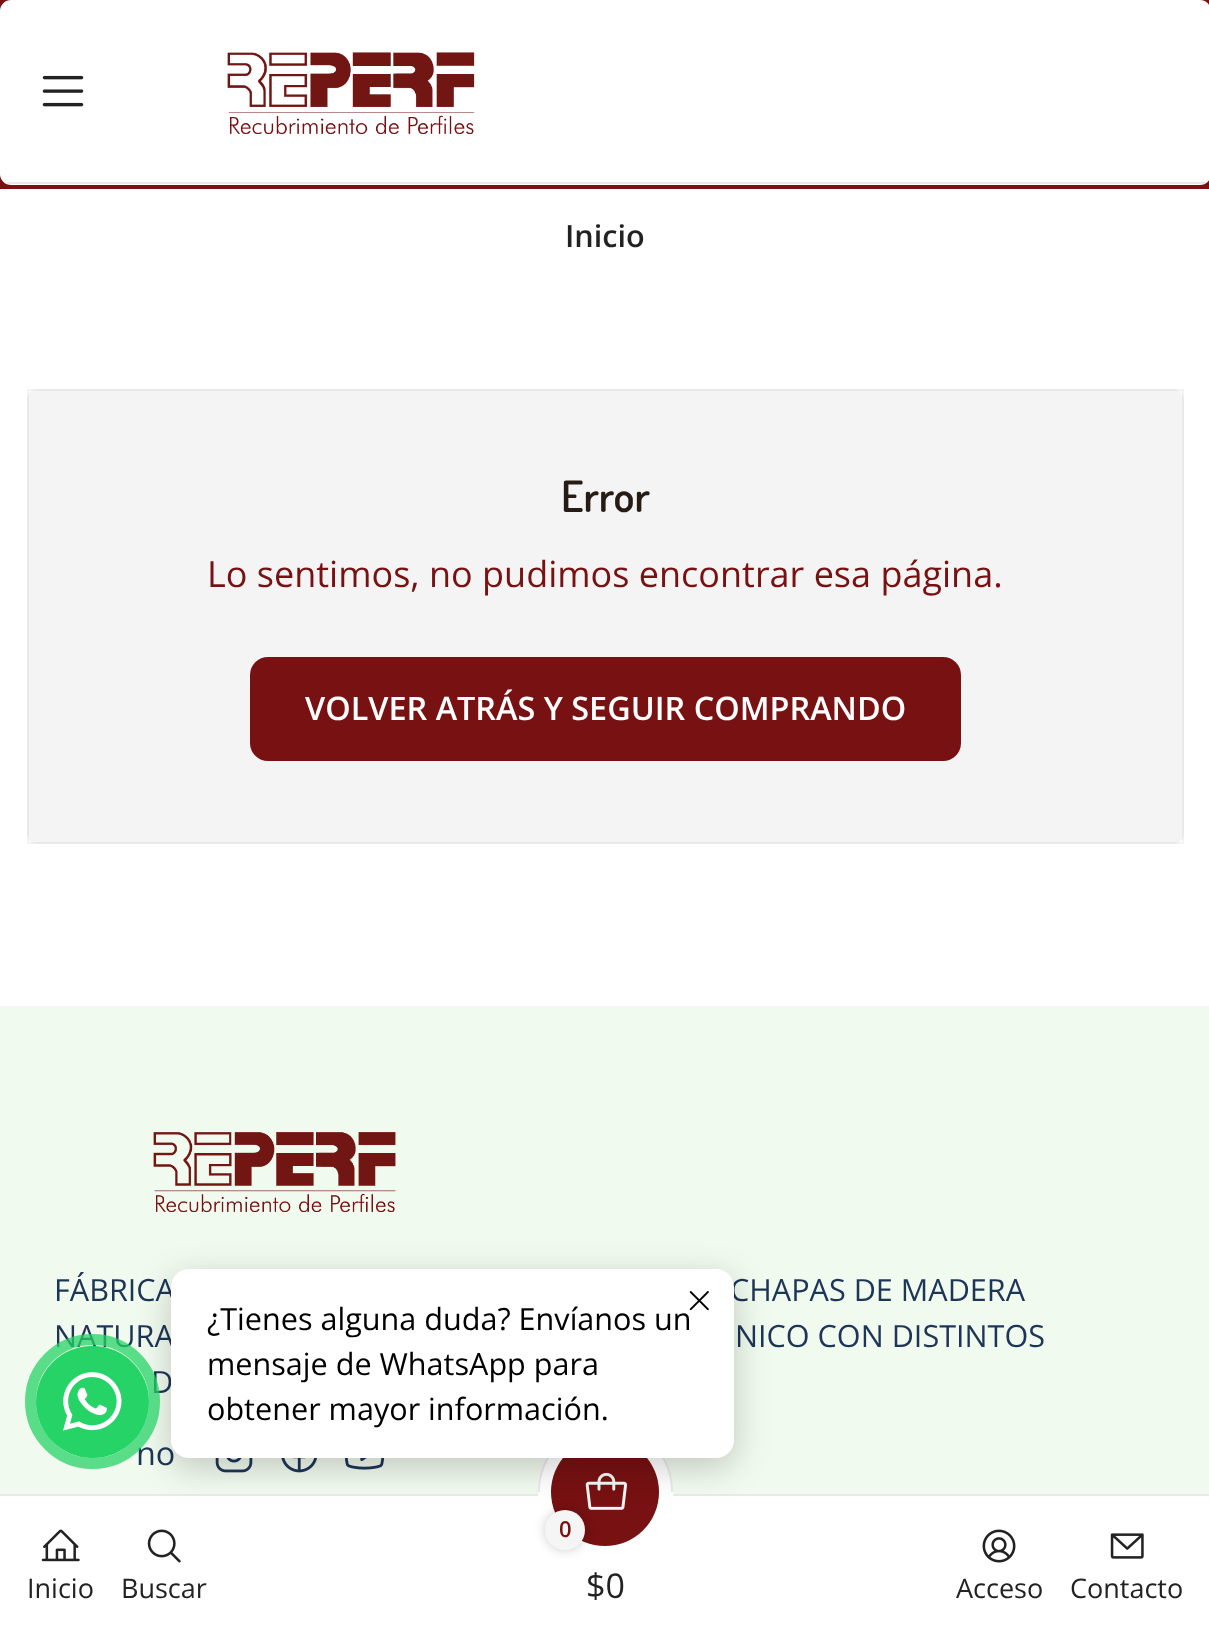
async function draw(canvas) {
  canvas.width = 1209;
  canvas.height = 1628;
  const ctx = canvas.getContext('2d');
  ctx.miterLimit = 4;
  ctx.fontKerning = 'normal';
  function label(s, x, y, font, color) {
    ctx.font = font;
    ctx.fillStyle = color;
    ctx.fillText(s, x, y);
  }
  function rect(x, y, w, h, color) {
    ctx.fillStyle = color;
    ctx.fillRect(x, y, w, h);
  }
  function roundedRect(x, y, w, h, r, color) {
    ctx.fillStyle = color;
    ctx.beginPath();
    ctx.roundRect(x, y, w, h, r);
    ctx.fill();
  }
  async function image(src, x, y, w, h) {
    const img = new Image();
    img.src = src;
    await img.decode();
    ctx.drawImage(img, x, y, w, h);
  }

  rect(0, 0, 1209, 1628, '#fff');
  label('Inicio', 565, 247, '600 30.6px Open Sans', '#222');
  roundedRect(27, 389, 1157, 455, 11, '#f5f4f4');
  ctx.strokeStyle = '#261c150d';
  ctx.lineWidth = 2;
  ctx.strokeRect(28, 390, 1155, 453);
  label('Error', 561, 512, '600 43px Dosis', '#261c15');
  label('Lo sentimos, no pudimos encontrar esa página.', 207, 587, '36px Open Sans', '#771112');
  roundedRect(250, 657, 711, 104, 18, '#771112');
  label('VOLVER ATRÁS Y SEGUIR COMPRANDO', 305, 720, '600 32.4px Open Sans', '#fff');
  rect(0, 1006, 1209, 488, '#f1faee');
  await image('assets/img1.png', 153, 1132, 243, 80);
  label('FÁBRICA', 54, 1301, '30.6px Open Sans', '#1d3557');
  label('CHAPAS DE MADERA', 730, 1301, '30.6px Open Sans', '#1d3557');
  label('NATURA', 54, 1347, '30.6px Open Sans', '#1d3557');
  label('NICO CON DISTINTOS', 735, 1347, '30.6px Open Sans', '#1d3557');
  label('D', 151, 1393, '30.6px Open Sans', '#1d3557');
  label('no', 136, 1465, '32.4px Open Sans', '#1d3557');
  await image('assets/img2.png', 215, 1458, 38, 15);
  await image('assets/img3.png', 281, 1458, 36, 15);
  await image('assets/img4.png', 344, 1458, 41, 12);
  rect(0, 0, 1209, 189, '#771112');
  roundedRect(0, 0, 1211, 185, 11, '#fff');
  rect(7, 182, 1199, 2, '#2222221a');
  await image('assets/img5.png', 42, 75, 42, 32);
  await image('assets/img6.png', 227, 52, 248, 82);
  rect(0, 1494, 1209, 2, '#e9e9e9');
  await image('assets/img7.png', 41, 1529, 39, 33);
  label('Inicio', 27, 1598, '27px Open Sans', '#222');
  await image('assets/img8.png', 147, 1529, 34, 34);
  label('Buscar', 121, 1598, '27px Open Sans', '#222');
  ctx.beginPath();
  ctx.arc(605.5, 1491.5, 60.5, 0, 2 * Math.PI);
  ctx.strokeStyle = '#fff';
  ctx.lineWidth = 14;
  ctx.stroke();
  ctx.fillStyle = '#fff';
  ctx.beginPath();
  ctx.arc(605.5, 1491.5, 66.5, 0, 2 * Math.PI);
  ctx.fill();
  ctx.strokeStyle = '#e9e9e9';
  ctx.lineWidth = 2;
  ctx.stroke();
  rect(538, 1492, 135, 67, '#fff');
  ctx.fillStyle = '#771112';
  ctx.beginPath();
  ctx.arc(605, 1492, 54, 0, 2 * Math.PI);
  ctx.fill();
  await image('assets/img9.png', 585, 1472, 42, 38);
  ctx.fillStyle = '#00000033';
  ctx.filter = 'blur(5.5px)';
  ctx.beginPath();
  ctx.roundRect(545, 1510, 40, 40, 20);
  ctx.fill();
  ctx.filter = 'none';
  ctx.fillStyle = '#f5f5f5';
  ctx.beginPath();
  ctx.arc(565, 1530, 20, 0, 2 * Math.PI);
  ctx.fill();
  label('0', 559, 1537, '600 22px Open Sans', '#771112');
  label('$0', 586, 1598, '34px Open Sans', '#222');
  await image('assets/img10.png', 982, 1529, 34, 34);
  label('Acceso', 956, 1598, '27px Open Sans', '#222');
  await image('assets/img11.png', 1110, 1533, 34, 26);
  label('Contacto', 1070, 1598, '27px Open Sans', '#222');
  ctx.fillStyle = '#00000033';
  ctx.filter = 'blur(17px)';
  ctx.beginPath();
  ctx.roundRect(171, 1278, 563, 189, 18);
  ctx.fill();
  ctx.filter = 'none';
  roundedRect(36, 1346, 113, 112, 56, '#25d366');
  await image('assets/img12.png', 63, 1372, 59, 59);
  ctx.beginPath();
  ctx.arc(92.5, 1401.5, 62, 0, 2 * Math.PI);
  ctx.strokeStyle = '#25d366bf';
  ctx.lineWidth = 11;
  ctx.stroke();
  roundedRect(171, 1269, 563, 189, 18, '#fff');
  label('¿Tienes alguna duda? Envíanos un', 207, 1330, '30.6px Open Sans', '#000');
  await image('assets/img13.png', 689, 1291, 20, 20);
  label('mensaje de WhatsApp para', 207, 1375, '30.6px Open Sans', '#000');
  label('obtener mayor información.', 207, 1420, '30.6px Open Sans', '#000');
}

draw(document.querySelector('canvas'));
